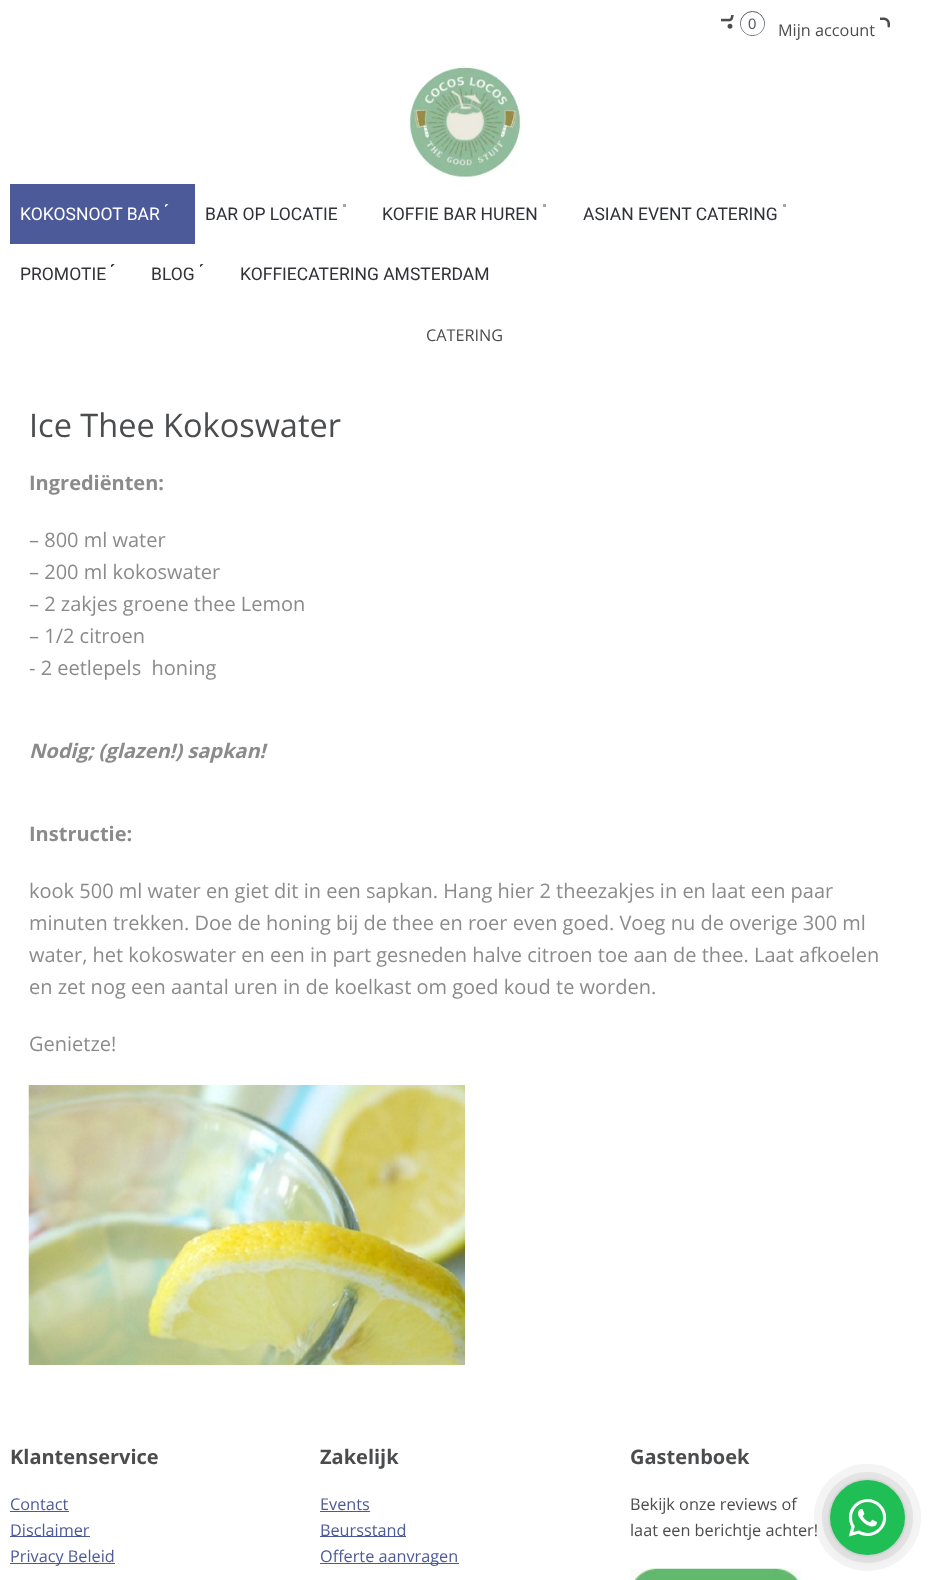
async function draw(canvas) {
  canvas.width = 930;
  canvas.height = 1580;
  const ctx = canvas.getContext('2d');
  ctx.miterLimit = 4;
  ctx.fontKerning = 'normal';
  function label(s, x, y, font, color) {
    ctx.font = font;
    ctx.fillStyle = color;
    ctx.fillText(s, x, y);
  }
  function rect(x, y, w, h, color) {
    ctx.fillStyle = color;
    ctx.fillRect(x, y, w, h);
  }
  function roundedRect(x, y, w, h, r, color) {
    ctx.fillStyle = color;
    ctx.beginPath();
    ctx.roundRect(x, y, w, h, r);
    ctx.fill();
  }
  async function image(src, x, y, w, h) {
    const img = new Image();
    img.src = src;
    await img.decode();
    ctx.drawImage(img, x, y, w, h);
  }

  rect(0, 0, 930, 1580, '#fff');
  await image('assets/img1.png', 721, 15, 13, 14);
  ctx.beginPath();
  ctx.arc(752.5, 23.5, 12, 0, 2 * Math.PI);
  ctx.strokeStyle = '#575b62';
  ctx.stroke();
  roundedRect(741, 13, 23, 22, 11, '#fff');
  label('0', 748, 29, '15px Liberation Sans', '#575b62');
  await image('assets/img2.png', 880, 17, 10, 11);
  label('Mijn account', 778, 36, '16.25px Open Sans', '#4a4c4e');
  await image('assets/img3.png', 409, 66, 116, 112);
  await image('assets/img4.png', 410, 67, 110, 110);
  rect(10, 184, 185, 60, '#4d5a99');
  await image('assets/img5.png', 165, 204, 4, 3);
  label('KOKOSNOOT BAR', 20, 220, '17.5px Roboto', '#fff');
  rect(343, 204, 3, 3, '#a6a7a9');
  label('BAR OP LOCATIE', 205, 220, '17.5px Roboto', '#303237');
  rect(543, 204, 3, 3, '#a6a7a9');
  label('KOFFIE BAR HUREN', 382, 220, '17.5px Roboto', '#303237');
  rect(783, 204, 3, 3, '#a6a7a9');
  label('ASIAN EVENT CATERING', 583, 220, '17.5px Roboto', '#303237');
  await image('assets/img6.png', 111, 264, 4, 3);
  label('PROMOTIE', 20, 280, '17.5px Roboto', '#303237');
  await image('assets/img7.png', 200, 264, 4, 3);
  label('BLOG', 151, 280, '17.5px Roboto', '#303237');
  label('KOFFIECATERING AMSTERDAM', 240, 280, '17.5px Roboto', '#303237');
  label('CATERING', 426, 341, '16.25px Open Sans', '#4a4c4e');
  label('Ice Thee Kokoswater', 29, 437, '32.5px Open Sans', '#4a4c4e');
  label('Ingrediënten:', 29, 490, 'bold 20px Open Sans', '#8b8b8b');
  label('– 800 ml water', 29, 547, '20px Open Sans', '#8b8b8b');
  label('– 200 ml kokoswater', 29, 579, '20px Open Sans', '#8b8b8b');
  label('– 2 zakjes groene thee Lemon', 29, 611, '20px Open Sans', '#8b8b8b');
  label('– 1/2 citroen', 29, 643, '20px Open Sans', '#8b8b8b');
  label('- 2 eetlepels  honing', 29, 675, '20px Open Sans', '#8b8b8b');
  label('Nodig; (glazen!) sapkan!', 29, 758, 'italic bold 20px Open Sans', '#8b8b8b');
  label('Instructie:', 29, 841, 'bold 20px Open Sans', '#8b8b8b');
  label('kook 500 ml water en giet dit in een sapkan. Hang hier 2 theezakjes in en laat een paar', 29, 898, '20px Open Sans', '#8b8b8b');
  label('minuten trekken. Doe de honing bij de thee en roer even goed. Voeg nu de overige 300 ml', 29, 930, '20px Open Sans', '#8b8b8b');
  label('water, het kokoswater en een in part gesneden halve citroen toe aan de thee. Laat afkoelen', 29, 962, '20px Open Sans', '#8b8b8b');
  label('en zet nog een aantal uren in de koelkast om goed koud te worden.', 29, 994, '20px Open Sans', '#8b8b8b');
  label('Genietze!', 29, 1051, '20px Open Sans', '#8b8b8b');
  await image('assets/img8.png', 28, 1085, 437, 280);
  label('Klantenservice', 10, 1464, 'bold 20px Open Sans', '#4a4c4e');
  label('Contact', 10, 1510, '16.25px Open Sans', '#4d5a99');
  rect(10, 1511, 59, 1, '#4d5a99');
  rect(10, 1536, 80, 1, '#4d5a99');
  label('Disclaimer', 10, 1536, '16.25px Open Sans', '#4d5a99');
  rect(10, 1563, 105, 1, '#4d5a99');
  label('Privacy Beleid', 10, 1562, '16.25px Open Sans', '#4d5a99');
  label('Zakelijk', 320, 1464, 'bold 20px Open Sans', '#4a4c4e');
  label('Events', 320, 1510, '16.25px Open Sans', '#4d5a99');
  rect(320, 1511, 50, 1, '#4d5a99');
  rect(320, 1536, 86, 1, '#4d5a99');
  label('Beursstand', 320, 1536, '16.25px Open Sans', '#4d5a99');
  rect(320, 1563, 139, 1, '#4d5a99');
  label('Offerte aanvragen', 320, 1562, '16.25px Open Sans', '#4d5a99');
  label('Gastenboek', 630, 1464, 'bold 20px Open Sans', '#4a4c4e');
  label('Bekijk onze reviews of', 630, 1510, '16.25px Open Sans', '#4a4c4e');
  label('laat een berichtje achter!', 630, 1536, '16.25px Open Sans', '#4a4c4e');
  await image('assets/img9.png', 630, 1568, 172, 12);
  await image('assets/img10.png', 814, 1464, 107, 107);
}

draw(document.querySelector('canvas'));
